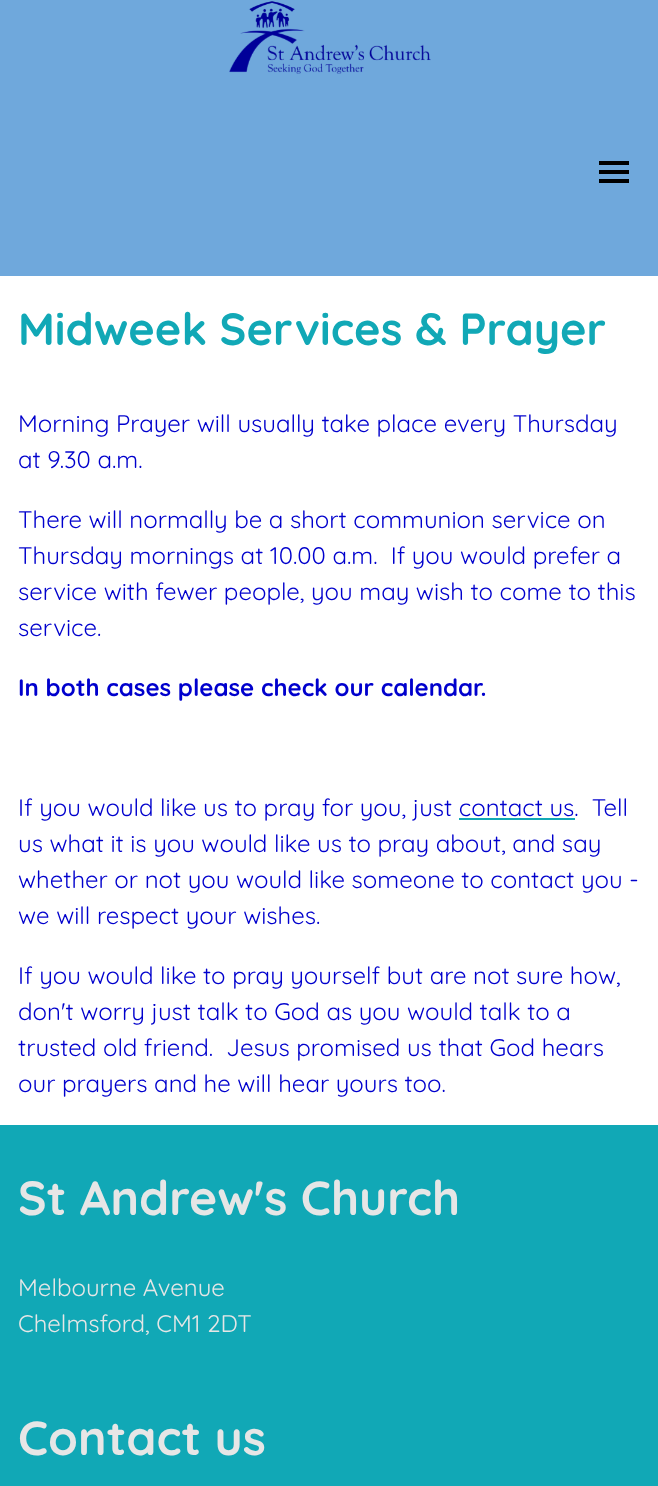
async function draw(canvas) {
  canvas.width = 658;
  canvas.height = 1486;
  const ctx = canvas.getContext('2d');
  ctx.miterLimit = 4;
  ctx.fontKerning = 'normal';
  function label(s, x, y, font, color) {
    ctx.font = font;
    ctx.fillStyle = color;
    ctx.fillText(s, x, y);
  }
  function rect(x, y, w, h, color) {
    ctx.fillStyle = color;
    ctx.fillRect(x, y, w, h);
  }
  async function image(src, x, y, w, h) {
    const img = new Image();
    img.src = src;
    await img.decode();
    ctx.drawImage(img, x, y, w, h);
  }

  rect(0, 0, 658, 1486, '#fff');
  rect(0, 0, 658, 276, '#6fa8dc');
  await image('assets/img1.png', 229, 1, 202, 73);
  rect(599, 161, 30, 4, '#000');
  rect(599, 170, 30, 4, '#000');
  rect(599, 179, 30, 4, '#000');
  label('Midweek Services & Prayer', 18, 345, 'bold 45px Quicksand', '#11a8b6');
  label('Morning Prayer will usually take place every Thursday', 18, 432, '24px Quicksand', '#0000cd');
  label('at 9.30 a.m.', 18, 468, '24px Quicksand', '#0000cd');
  label('There will normally be a short communion service on', 18, 528, '24px Quicksand', '#0000cd');
  label('Thursday mornings at 10.00 a.m.  If you would prefer a', 18, 564, '24px Quicksand', '#0000cd');
  label('service with fewer people, you may wish to come to this', 18, 600, '24px Quicksand', '#0000cd');
  label('service.', 18, 636, '24px Quicksand', '#0000cd');
  label('In both cases please check our calendar.', 18, 696, 'bold 24px Quicksand', '#0000cd');
  label('If you would like us to pray for you, just contact us.  Tell', 18, 816, '24px Quicksand', '#0000cd');
  rect(459, 818, 116, 2, '#11a8b6');
  label('us what it is you would like us to pray about, and say', 18, 852, '24px Quicksand', '#0000cd');
  label('whether or not you would like someone to contact you -', 18, 888, '24px Quicksand', '#0000cd');
  label('we will respect your wishes.', 18, 924, '24px Quicksand', '#0000cd');
  label('If you would like to pray yourself but are not sure how,', 18, 984, '24px Quicksand', '#0000cd');
  label('don\'t worry just talk to God as you would talk to a', 18, 1020, '24px Quicksand', '#0000cd');
  label('trusted old friend.  Jesus promised us that God hears', 18, 1056, '24px Quicksand', '#0000cd');
  label('our prayers and he will hear yours too.', 18, 1092, '24px Quicksand', '#0000cd');
  rect(0, 1125, 658, 361, '#11a8b6');
  label('St Andrew\'s Church', 18, 1215, 'bold 48px Quicksand', '#e6e6e6');
  label('Melbourne Avenue', 18, 1296, '24px Quicksand', '#e6e6e6');
  label('Chelmsford, CM1 2DT', 18, 1332, '24px Quicksand', '#e6e6e6');
  label('Contact us', 18, 1455, 'bold 48px Quicksand', '#e6e6e6');
}

draw(document.querySelector('canvas'));
